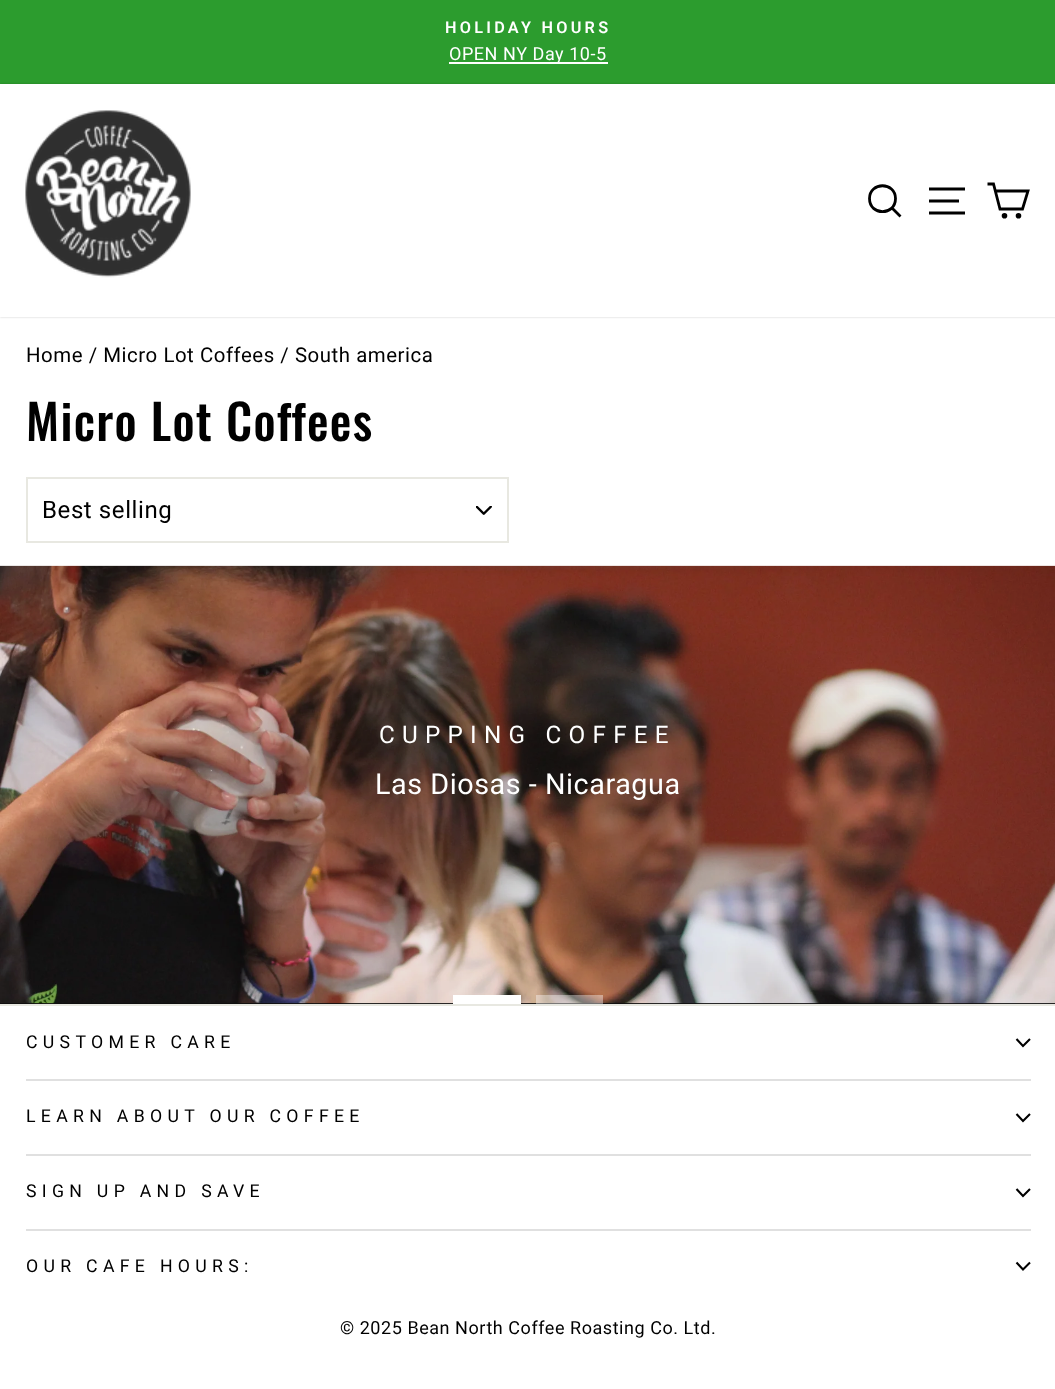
async function draw(canvas) {
  canvas.width = 1055;
  canvas.height = 1389;
  const ctx = canvas.getContext('2d');
  ctx.miterLimit = 4;
  ctx.fontKerning = 'normal';
  function label(s, x, y, font, color) {
    ctx.font = font;
    ctx.fillStyle = color;
    ctx.fillText(s, x, y);
  }
  function rect(x, y, w, h, color) {
    ctx.fillStyle = color;
    ctx.fillRect(x, y, w, h);
  }
  async function image(src, x, y, w, h) {
    const img = new Image();
    img.src = src;
    await img.decode();
    ctx.drawImage(img, x, y, w, h);
  }
  let path;

  rect(0, 0, 1055, 1389, '#fff');
  rect(0, 0, 1055, 84, '#2c9c2e');
  ctx.letterSpacing = '3.25px';
  label('HOLIDAY HOURS', 445, 33, '600 16.25px Roboto', '#fff');
  rect(449, 62, 159, 2, '#fff');
  ctx.letterSpacing = '0.55px';
  label('OPEN NY Day 10-5', 449, 60, '18px Roboto', '#fff');
  ctx.fillStyle = '#00000033';
  ctx.filter = 'blur(1px)';
  ctx.beginPath();
  ctx.rect(0, 84, 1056, 233);
  ctx.fill();
  ctx.filter = 'none';
  rect(0, 84, 1055, 233, '#fff');
  await image('assets/img1.png', 25, 110, 166, 168);
  path = new Path2D('M895.5 198.5C895.5 216 869.5 216 869.5 198.5C869.5 181.5 895.5 181.5 895.5 198.5ZM900.5 216.5L892 208');
  ctx.strokeStyle = '#000';
  ctx.lineWidth = 2.8;
  ctx.stroke(path);
  path = new Path2D('M929 189H965M929 201H959M929 213H965');
  ctx.stroke(path);
  path = new Path2D('M995.5 191H1028L1022.5 209H1000L993.5 184H987.5');
  ctx.stroke(path);
  ctx.beginPath();
  ctx.arc(1004.5, 215.8, 1.4, 0, 2 * Math.PI);
  ctx.stroke();
  ctx.beginPath();
  ctx.arc(1018.5, 215.8, 1.4, 0, 2 * Math.PI);
  ctx.stroke();
  label('Home / Micro Lot Coffees / South america', 26, 362, '20.4px Roboto', '#000');
  ctx.letterSpacing = '1.25px';
  label('Micro Lot Coffees', 26, 441, '500 48.5px Oswald', '#000');
  await image('assets/img2.png', 476, 506, 16, 9);
  ctx.strokeStyle = '#e8e8e1';
  ctx.lineWidth = 2;
  ctx.strokeRect(27, 478, 481, 64);
  ctx.letterSpacing = '0.6px';
  label('Best selling', 42, 518, '24px Roboto', '#000');
  rect(0, 1003, 1055, 1, '#0e0e0e');
  await image('assets/img3.png', 0, 565, 1055, 439);
  ctx.letterSpacing = '7.25px';
  label('CUPPING COFFEE', 379, 743, '24.25px Roboto', '#fff');
  ctx.letterSpacing = '0.55px';
  label('Las Diosas - Nicaragua', 375, 794, '28.75px Roboto', '#fff');
  rect(453, 995, 68, 9, '#fff');
  rect(536, 995, 67, 9, '#ffffff66');
  rect(0, 1004, 1055, 2, '#e8e8e1');
  ctx.letterSpacing = '5.3px';
  label('CUSTOMER CARE', 26, 1048, '17.7px Roboto', '#000');
  path = new Path2D('M1016.5 1039L1023 1046L1030 1039');
  ctx.strokeStyle = '#000';
  ctx.lineWidth = 2.1;
  ctx.stroke(path);
  rect(26, 1079, 1005, 2, '#e0e0e0');
  label('LEARN ABOUT OUR COFFEE', 26, 1122, '17.7px Roboto', '#000');
  path = new Path2D('M1016.5 1114L1023 1121L1030 1114');
  ctx.stroke(path);
  rect(26, 1154, 1005, 2, '#e0e0e0');
  label('SIGN UP AND SAVE', 26, 1197, '17.7px Roboto', '#000');
  path = new Path2D('M1016.5 1189L1023 1196L1030 1189');
  ctx.stroke(path);
  rect(26, 1229, 1005, 2, '#e0e0e0');
  label('OUR CAFE HOURS:', 26, 1272, '17.7px Roboto', '#000');
  path = new Path2D('M1016.5 1262.5L1023 1269.5L1030 1262.5');
  ctx.stroke(path);
  ctx.letterSpacing = '0.55px';
  label('© 2025 Bean North Coffee Roasting Co. Ltd.', 340, 1334, '18px Roboto', '#000');
}

draw(document.querySelector('canvas'));
